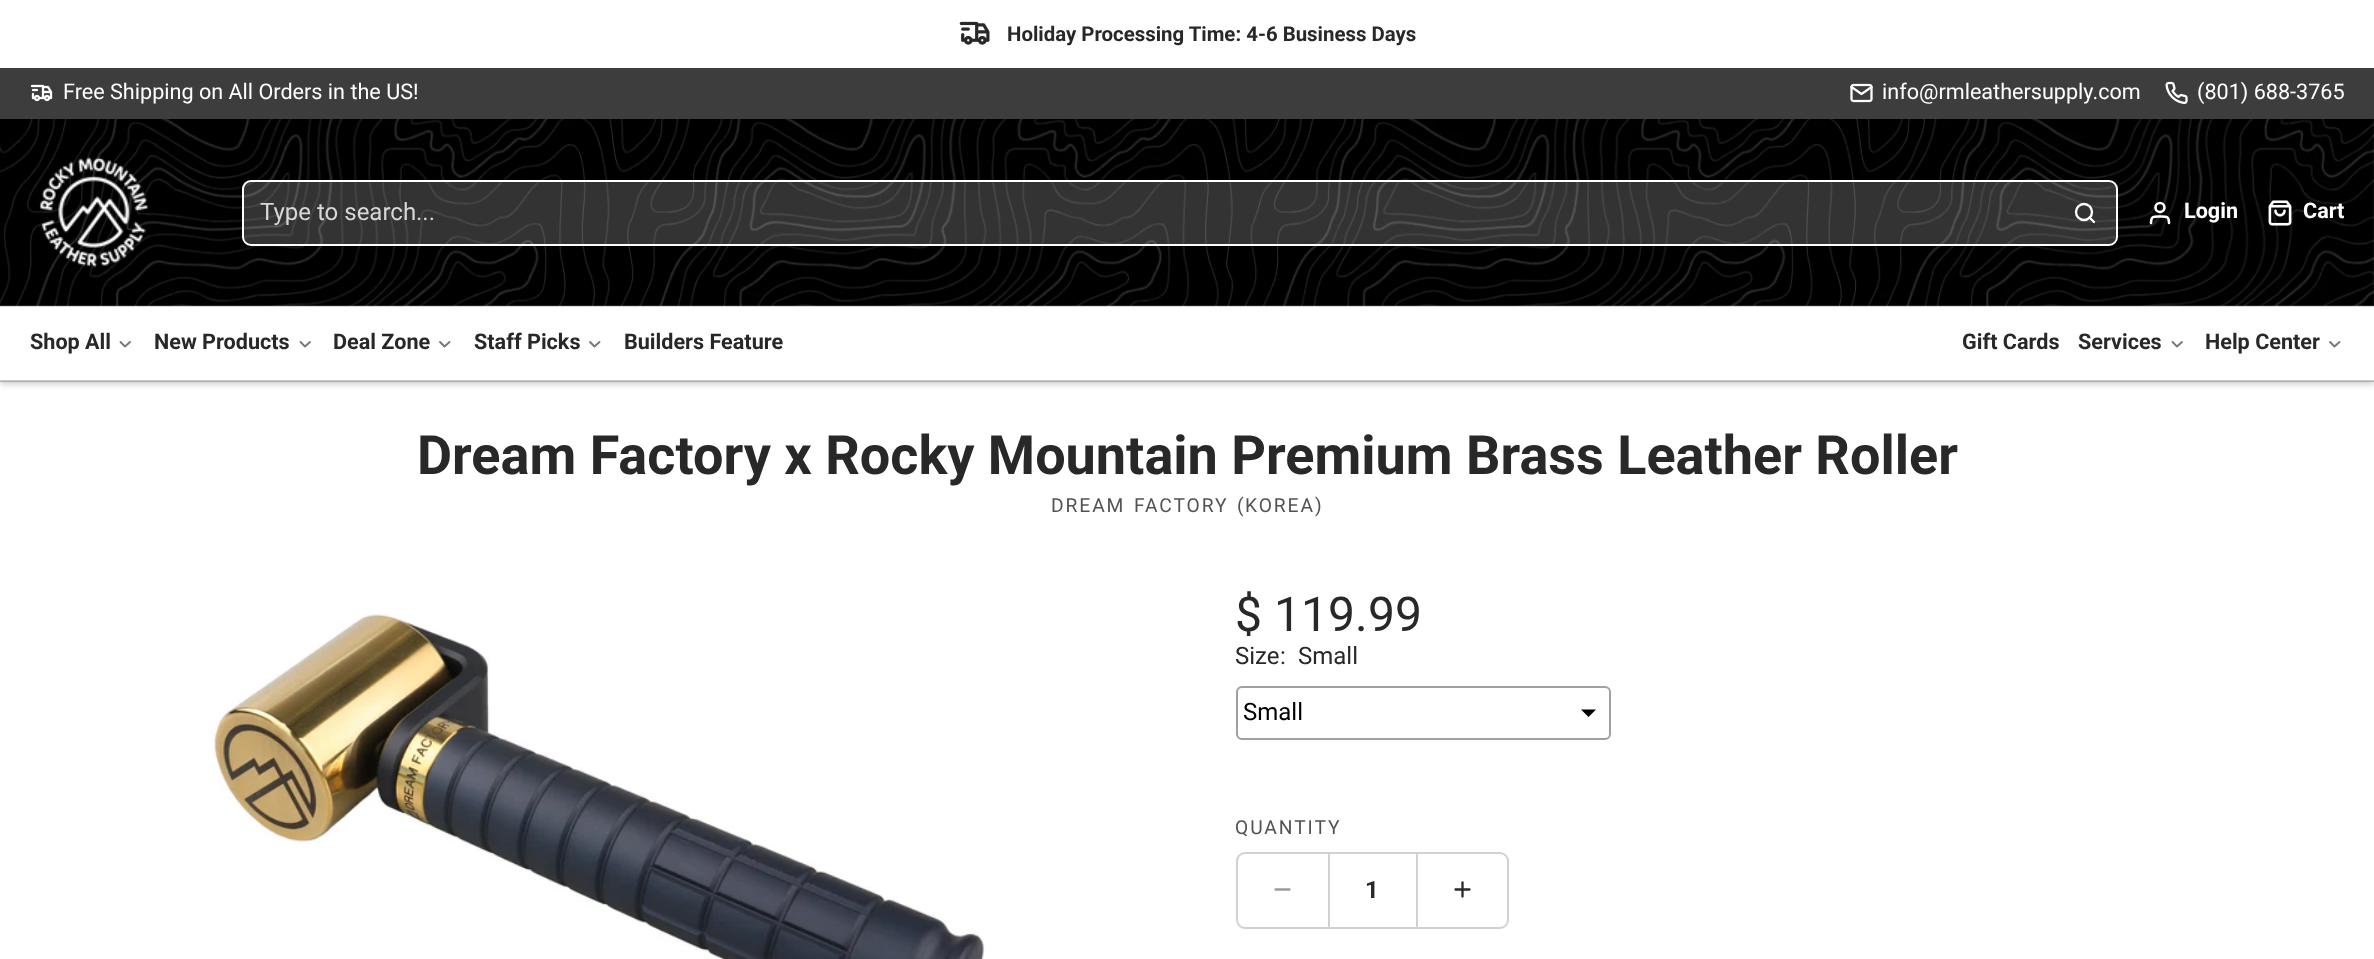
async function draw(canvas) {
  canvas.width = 2374;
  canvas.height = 959;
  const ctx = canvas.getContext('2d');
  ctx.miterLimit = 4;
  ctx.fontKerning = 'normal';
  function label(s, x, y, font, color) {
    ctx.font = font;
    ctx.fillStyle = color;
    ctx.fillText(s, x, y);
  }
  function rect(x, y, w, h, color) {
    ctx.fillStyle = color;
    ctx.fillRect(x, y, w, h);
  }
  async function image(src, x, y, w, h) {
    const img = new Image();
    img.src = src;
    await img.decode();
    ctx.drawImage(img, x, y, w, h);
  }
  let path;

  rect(0, 0, 2374, 959, '#fff');
  await image('assets/img1.png', 959, 21, 31, 24);
  label('Holiday Processing Time: 4-6 Business Days', 1007, 41, 'bold 20.4px Roboto', '#282828');
  rect(0, 68, 2374, 51, '#3d3d3d');
  await image('assets/img2.png', 30, 84, 23, 18);
  label('Free Shipping on All Orders in the US!', 63, 99, '21.6px "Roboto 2"', '#fff');
  await image('assets/img3.png', 1850, 83, 23, 20);
  label('info@rmleathersupply.com', 1882, 99, '21.6px "Roboto 2"', '#fff');
  await image('assets/img4.png', 2165, 81, 23, 24);
  label('(801) 688-3765', 2197, 99, '21.6px "Roboto 2"', '#fff');
  ctx.save();
  path = new Path2D('M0 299H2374V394H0ZM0 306H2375V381H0Z');
  ctx.clip(path, 'evenodd');
  ctx.fillStyle = '#00000033';
  ctx.filter = 'blur(3px)';
  ctx.beginPath();
  ctx.rect(0, 309, 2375, 75);
  ctx.fill();
  ctx.filter = 'none';
  ctx.restore();
  await image('assets/img5.png', 0, 119, 2374, 188);
  await image('assets/img6.png', 39, 157, 110, 111);
  ctx.fillStyle = '#ffffff33';
  ctx.beginPath();
  ctx.roundRect(243, 181, 1874, 64, 8);
  ctx.fill();
  ctx.strokeStyle = '#fff';
  ctx.lineWidth = 2;
  ctx.stroke();
  label('Type to search', 260, 220, '24px Roboto', '#d7d7d7');
  label('...', 416, 220, '24px "Roboto 2"', '#d7d7d7');
  ctx.beginPath();
  ctx.arc(2084, 212, 8, 0, 2 * Math.PI);
  ctx.lineWidth = 2.3;
  ctx.stroke();
  path = new Path2D('M2094 222L2089.5 217.5');
  ctx.lineCap = 'round';
  ctx.lineJoin = 'round';
  ctx.stroke(path);
  path = new Path2D('M2169 223C2169 216 2166.5 216.5 2160 216.5C2153.5 216.5 2151 216 2151 223');
  ctx.lineWidth = 2.6;
  ctx.stroke(path);
  ctx.beginPath();
  ctx.arc(2160, 207.5, 4.5, 0, 2 * Math.PI);
  ctx.stroke();
  label('Login', 2184, 218, 'bold 21.6px Roboto', '#fff');
  await image('assets/img7.png', 2268, 200, 24, 26);
  label('Cart', 2303, 218, 'bold 21.6px Roboto', '#fff');
  rect(0, 380, 2374, 2, '#00000033');
  label('Shop All', 30, 349, 'bold 21.6px Roboto', '#282828');
  path = new Path2D('M120.5 342L125 346.5L130 342');
  ctx.strokeStyle = '#777';
  ctx.lineWidth = 1.9;
  ctx.stroke(path);
  label('New Products', 154, 349, 'bold 21.6px Roboto', '#282828');
  path = new Path2D('M300.5 342L305 346.5L310 342');
  ctx.stroke(path);
  label('Deal Zone', 333, 349, 'bold 21.6px Roboto', '#282828');
  path = new Path2D('M440 342L444.5 346.5L449.5 342');
  ctx.stroke(path);
  label('Staff Picks', 474, 349, 'bold 21.6px Roboto', '#282828');
  path = new Path2D('M590 342L594.5 346.5L599.5 342');
  ctx.stroke(path);
  label('Builders Feature', 624, 349, 'bold 21.6px Roboto', '#282828');
  label('Gift Cards', 1962, 349, 'bold 21.6px Roboto', '#282828');
  label('Services', 2078, 349, 'bold 21.6px Roboto', '#282828');
  path = new Path2D('M2172.5 342L2177 346.5L2182 342');
  ctx.stroke(path);
  label('Help Center', 2205, 349, 'bold 21.6px Roboto', '#282828');
  path = new Path2D('M2330 342L2334.5 346.5L2339.5 342');
  ctx.stroke(path);
  label('Dream Factory x Rocky Mountain Premium Brass Leather Roller', 417, 474, 'bold 54px Roboto', '#282828');
  ctx.letterSpacing = '1.9px';
  ctx.wordSpacing = '2px';
  label('DREAM FACTORY', 1051, 512, '19.25px Roboto', '#535353');
  ctx.wordSpacing = '0px';
  label('(', 1237, 512, '19.25px "Roboto 2"', '#535353');
  label('KOREA', 1245, 512, '19.25px Roboto', '#535353');
  label(')', 1315, 512, '19.25px "Roboto 2"', '#535353');
  await image('assets/img8.png', 212, 613, 773, 346);
  ctx.letterSpacing = '0px';
  label('$', 1235, 631, '48px "Roboto 2"', '#282828');
  label('119', 1274, 631, '48px Roboto', '#282828');
  label('.', 1355, 631, '48px "Roboto 2"', '#282828');
  label('99', 1368, 631, '48px Roboto', '#282828');
  label('Size', 1235, 664, '24px Roboto', '#282828');
  label(':', 1280, 664, '24px "Roboto 2"', '#282828');
  label('Small', 1298, 664, '24px Roboto', '#282828');
  ctx.fillStyle = '#000';
  path = new Path2D('M1581 709.5L1588.5 717L1596 709.5Z');
  ctx.fill(path);
  ctx.beginPath();
  ctx.roundRect(1237, 687, 373, 52, 5);
  ctx.strokeStyle = '#a0a0a0';
  ctx.lineWidth = 2;
  ctx.lineJoin = 'miter';
  ctx.stroke();
  label('Small', 1243, 720, '24px Roboto', '#000');
  ctx.letterSpacing = '1.9px';
  label('QUANTITY', 1235, 834, '19.25px Roboto', '#535353');
  ctx.beginPath();
  ctx.roundRect(1237, 853, 271, 75, 8);
  ctx.strokeStyle = '#d1d1d1';
  ctx.stroke();
  path = new Path2D('M1275.5 889.5H1289.5');
  ctx.strokeStyle = '#9c9c9c';
  ctx.lineWidth = 2.3;
  ctx.lineJoin = 'round';
  ctx.stroke(path);
  rect(1416, 854, 2, 73, '#d1d1d1');
  rect(1328, 854, 2, 73, '#d1d1d1');
  ctx.letterSpacing = '0px';
  label('1', 1365, 898, 'bold 24px Roboto', '#282828');
  path = new Path2D('M1462.5 882.5V896.5M1455.5 889.5H1469.5');
  ctx.strokeStyle = '#282828';
  ctx.stroke(path);
}

draw(document.querySelector('canvas'));
